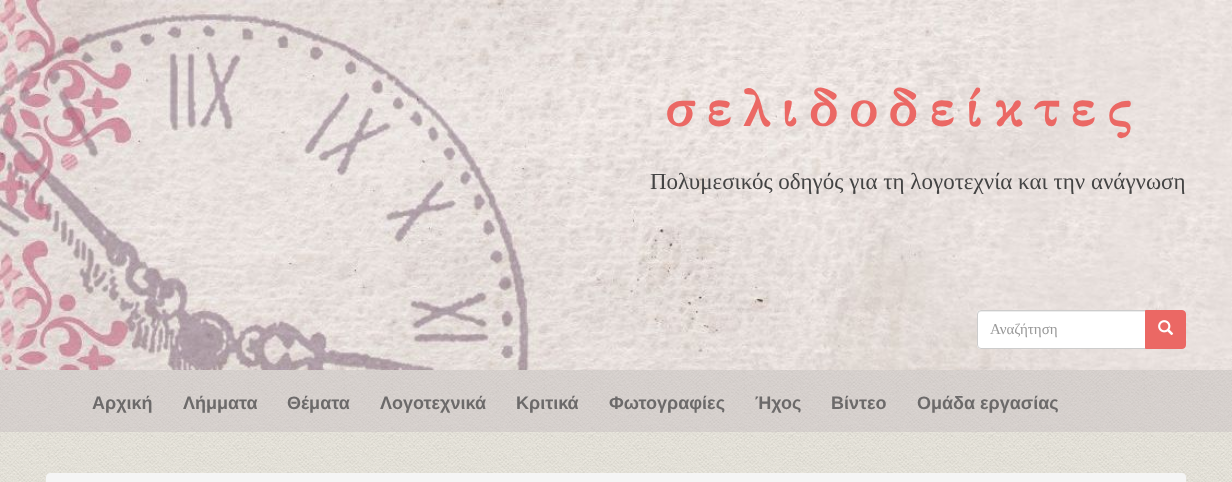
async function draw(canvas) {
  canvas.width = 1232;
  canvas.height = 482;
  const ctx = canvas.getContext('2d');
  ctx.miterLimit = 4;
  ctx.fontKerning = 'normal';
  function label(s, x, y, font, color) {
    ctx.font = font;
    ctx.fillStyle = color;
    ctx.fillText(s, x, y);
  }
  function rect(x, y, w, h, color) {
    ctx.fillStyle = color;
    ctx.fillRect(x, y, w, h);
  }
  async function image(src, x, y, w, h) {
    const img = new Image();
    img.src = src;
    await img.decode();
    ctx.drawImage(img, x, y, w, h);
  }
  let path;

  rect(0, 0, 1232, 482, '#fff');
  await image('assets/img1.png', 0, 370, 1232, 112);
  await image('assets/img2.png', 0, 0, 1232, 370);
  ctx.letterSpacing = '12px';
  label('σελιδοδείκτες', 665, 126, 'bold 51.5px GFS Didot', '#eb6864');
  ctx.letterSpacing = '0px';
  label('Πολυμεσικός οδηγός για τη λογοτεχνία και την ανάγνωση', 650, 189, '23px Tinos', '#444');
  ctx.fillStyle = '#fff';
  ctx.beginPath();
  ctx.roundRect(977, 310, 169, 39, [4, 0, 0, 4]);
  ctx.fill();
  ctx.fillStyle = '#ececec';
  path = new Path2D('M981 312H1145V311H980C978 311 978 313 978 315C978 313 979 312 981 312Z');
  ctx.fill(path);
  ctx.beginPath();
  ctx.roundRect(977.5, 310.5, 168, 38, [3.5, 0, 0, 3.5]);
  ctx.strokeStyle = '#ccc';
  ctx.stroke();
  label('Αναζήτηση', 990, 334, '15px Liberation Serif', '#999');
  ctx.fillStyle = '#eb6864';
  ctx.beginPath();
  ctx.roundRect(1145.5, 310.5, 40, 38, [0, 3.5, 3.5, 0]);
  ctx.fill();
  ctx.strokeStyle = '#eb6864';
  ctx.stroke();
  await image('assets/img3.png', 1158, 320, 16, 15);
  rect(0, 370, 1232, 62, '#c2b8bd66');
  label('Αρχική', 92, 409, 'bold 18px Liberation Sans', '#6c6a6a');
  label('Λήμματα', 183, 409, 'bold 18px Liberation Sans', '#6c6a6a');
  label('Θέματα', 287, 409, 'bold 18px Liberation Sans', '#6c6a6a');
  label('Λογοτεχνικά', 380, 409, 'bold 18px Liberation Sans', '#6c6a6a');
  label('Κριτικά', 516, 409, 'bold 18px Liberation Sans', '#6c6a6a');
  label('Φωτογραφίες', 609, 409, 'bold 18px Liberation Sans', '#6c6a6a');
  label('Ήχος', 755, 409, 'bold 18px Liberation Sans', '#6c6a6a');
  label('Βίντεο', 831, 409, 'bold 18px Liberation Sans', '#6c6a6a');
  label('Ομάδα εργασίας', 917, 409, 'bold 18px Liberation Sans', '#6c6a6a');
  ctx.fillStyle = '#f5f5f5';
  path = new Path2D('M50 473H1182C1184 473 1186 475 1186 477V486H46V477C46 475 48 473 50 473Z');
  ctx.fill(path);
}

draw(document.querySelector('canvas'));
